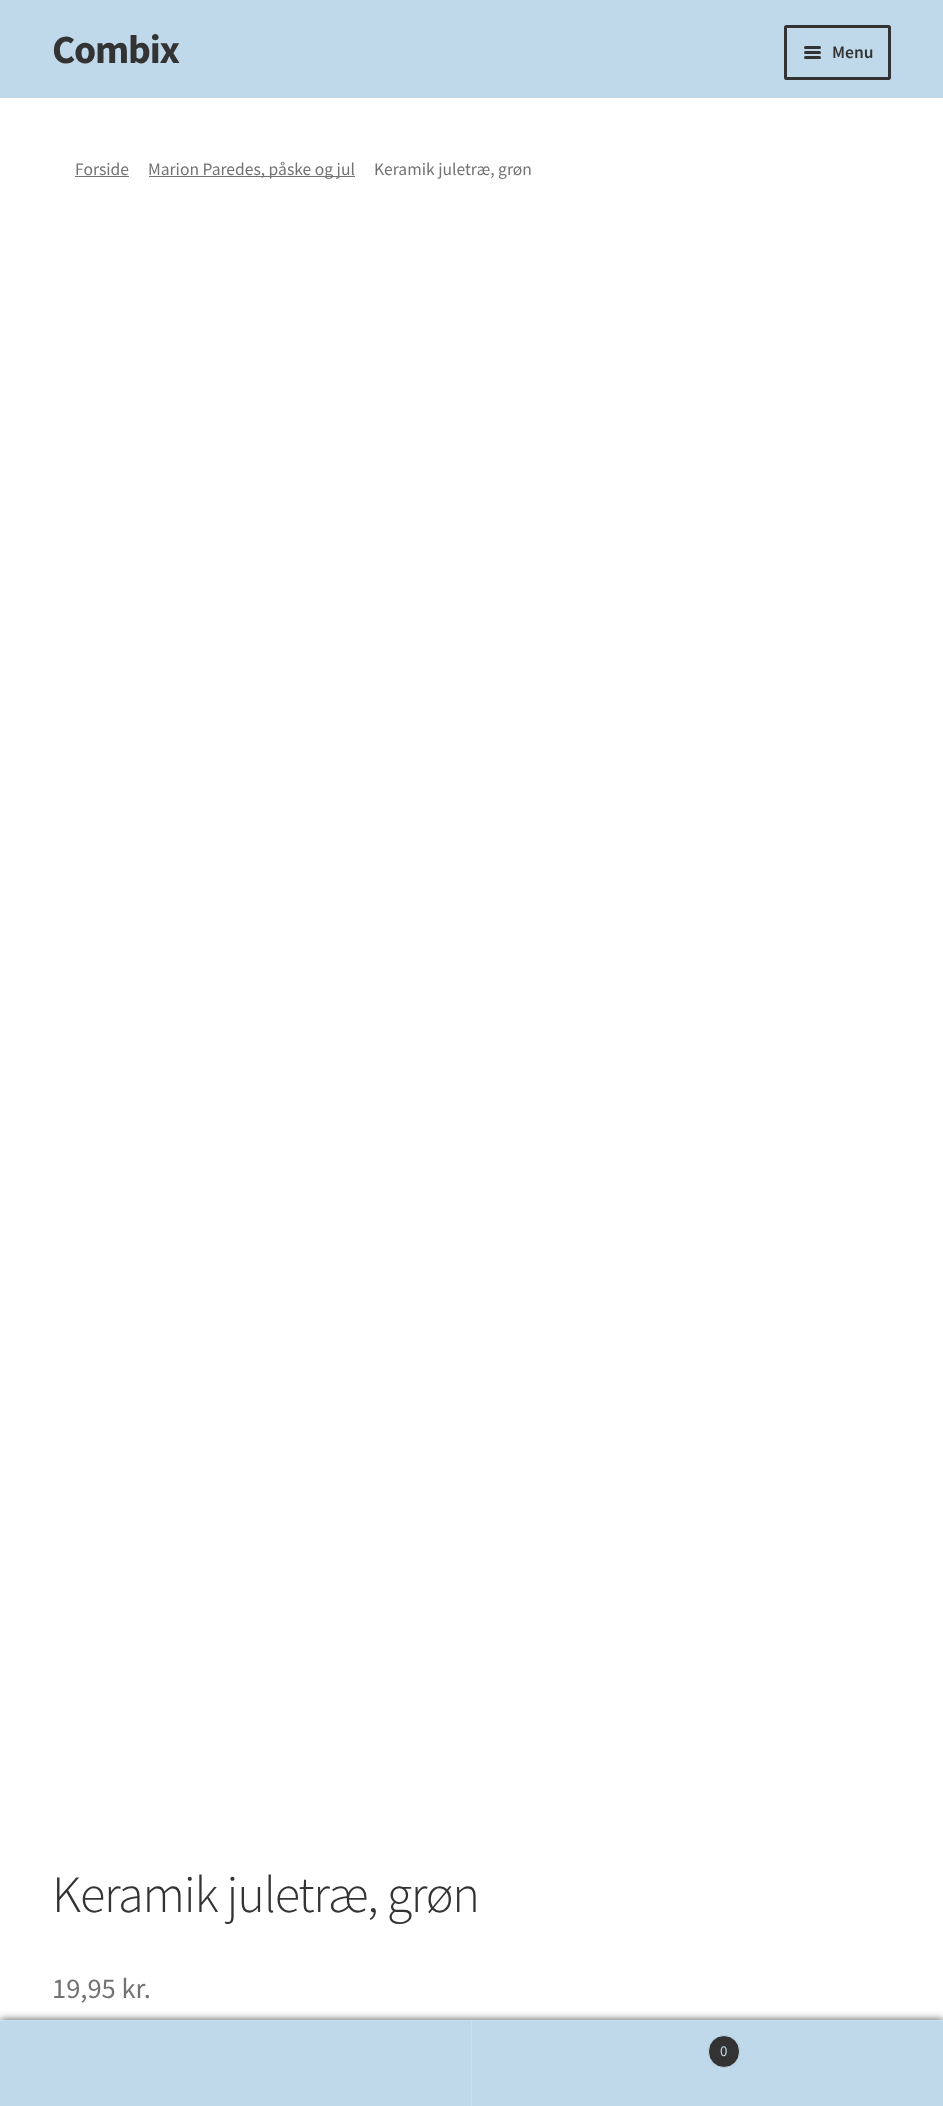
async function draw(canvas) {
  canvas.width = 943;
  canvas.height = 2106;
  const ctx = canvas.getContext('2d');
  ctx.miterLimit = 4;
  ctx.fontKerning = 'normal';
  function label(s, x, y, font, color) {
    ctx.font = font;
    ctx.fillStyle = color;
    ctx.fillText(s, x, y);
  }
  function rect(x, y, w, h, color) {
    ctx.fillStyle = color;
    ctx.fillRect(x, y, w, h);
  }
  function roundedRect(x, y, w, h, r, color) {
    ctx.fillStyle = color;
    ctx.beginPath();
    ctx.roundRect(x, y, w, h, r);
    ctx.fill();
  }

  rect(0, 0, 943, 2106, '#fff');
  rect(0, 0, 943, 98, '#bfd9eb');
  ctx.letterSpacing = '-1.25px';
  label('Combix', 52, 63, 'bold 40px Source Sans Pro', '#333');
  ctx.beginPath();
  ctx.roundRect(785.5, 26.5, 104, 52, 1);
  ctx.strokeStyle = '#333';
  ctx.lineWidth = 3;
  ctx.stroke();
  roundedRect(804, 46, 17, 3, 1.5, '#333');
  roundedRect(804, 51, 17, 3, 1.5, '#333');
  ctx.letterSpacing = '0px';
  label('Menu', 832, 58, '600 17.5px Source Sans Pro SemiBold', '#333');
  roundedRect(804, 56, 17, 3, 1.5, '#333');
  label('Forside', 75, 175, '17.5px Source Sans Pro', '#727272');
  rect(75, 176, 54, 1, '#727272');
  rect(149, 176, 206, 1, '#727272');
  label('Marion Paredes, påske og jul', 148, 175, '17.5px Source Sans Pro', '#727272');
  label('Keramik juletræ, grøn', 374, 175, '17.5px Source Sans Pro', '#727272');
  ctx.letterSpacing = '-1.25px';
  label('Keramik juletræ, grøn', 52, 1912, '300 52.25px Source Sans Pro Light', '#333');
  ctx.letterSpacing = '0px';
  label('19,95 kr.', 52, 1998, '28.5px Source Sans Pro', '#727272');
  ctx.fillStyle = '#000000b3';
  ctx.filter = 'blur(4px)';
  ctx.beginPath();
  ctx.rect(0, 2020, 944, 86);
  ctx.fill();
  ctx.filter = 'none';
  rect(0, 2020, 943, 1, '#cce1ef');
  rect(0, 2021, 943, 85, '#bfd9eb');
  rect(471, 2021, 1, 85, '#cce1ef');
  ctx.fillStyle = '#333';
  ctx.beginPath();
  ctx.roundRect(708.5, 2035.5, 31, 32, 15.5);
  ctx.fill();
  ctx.strokeStyle = '#bfd9eb';
  ctx.lineWidth = 1;
  ctx.stroke();
  label('0', 720, 2056, '15px Source Sans Pro', '#bfd9eb');
}

draw(document.querySelector('canvas'));
